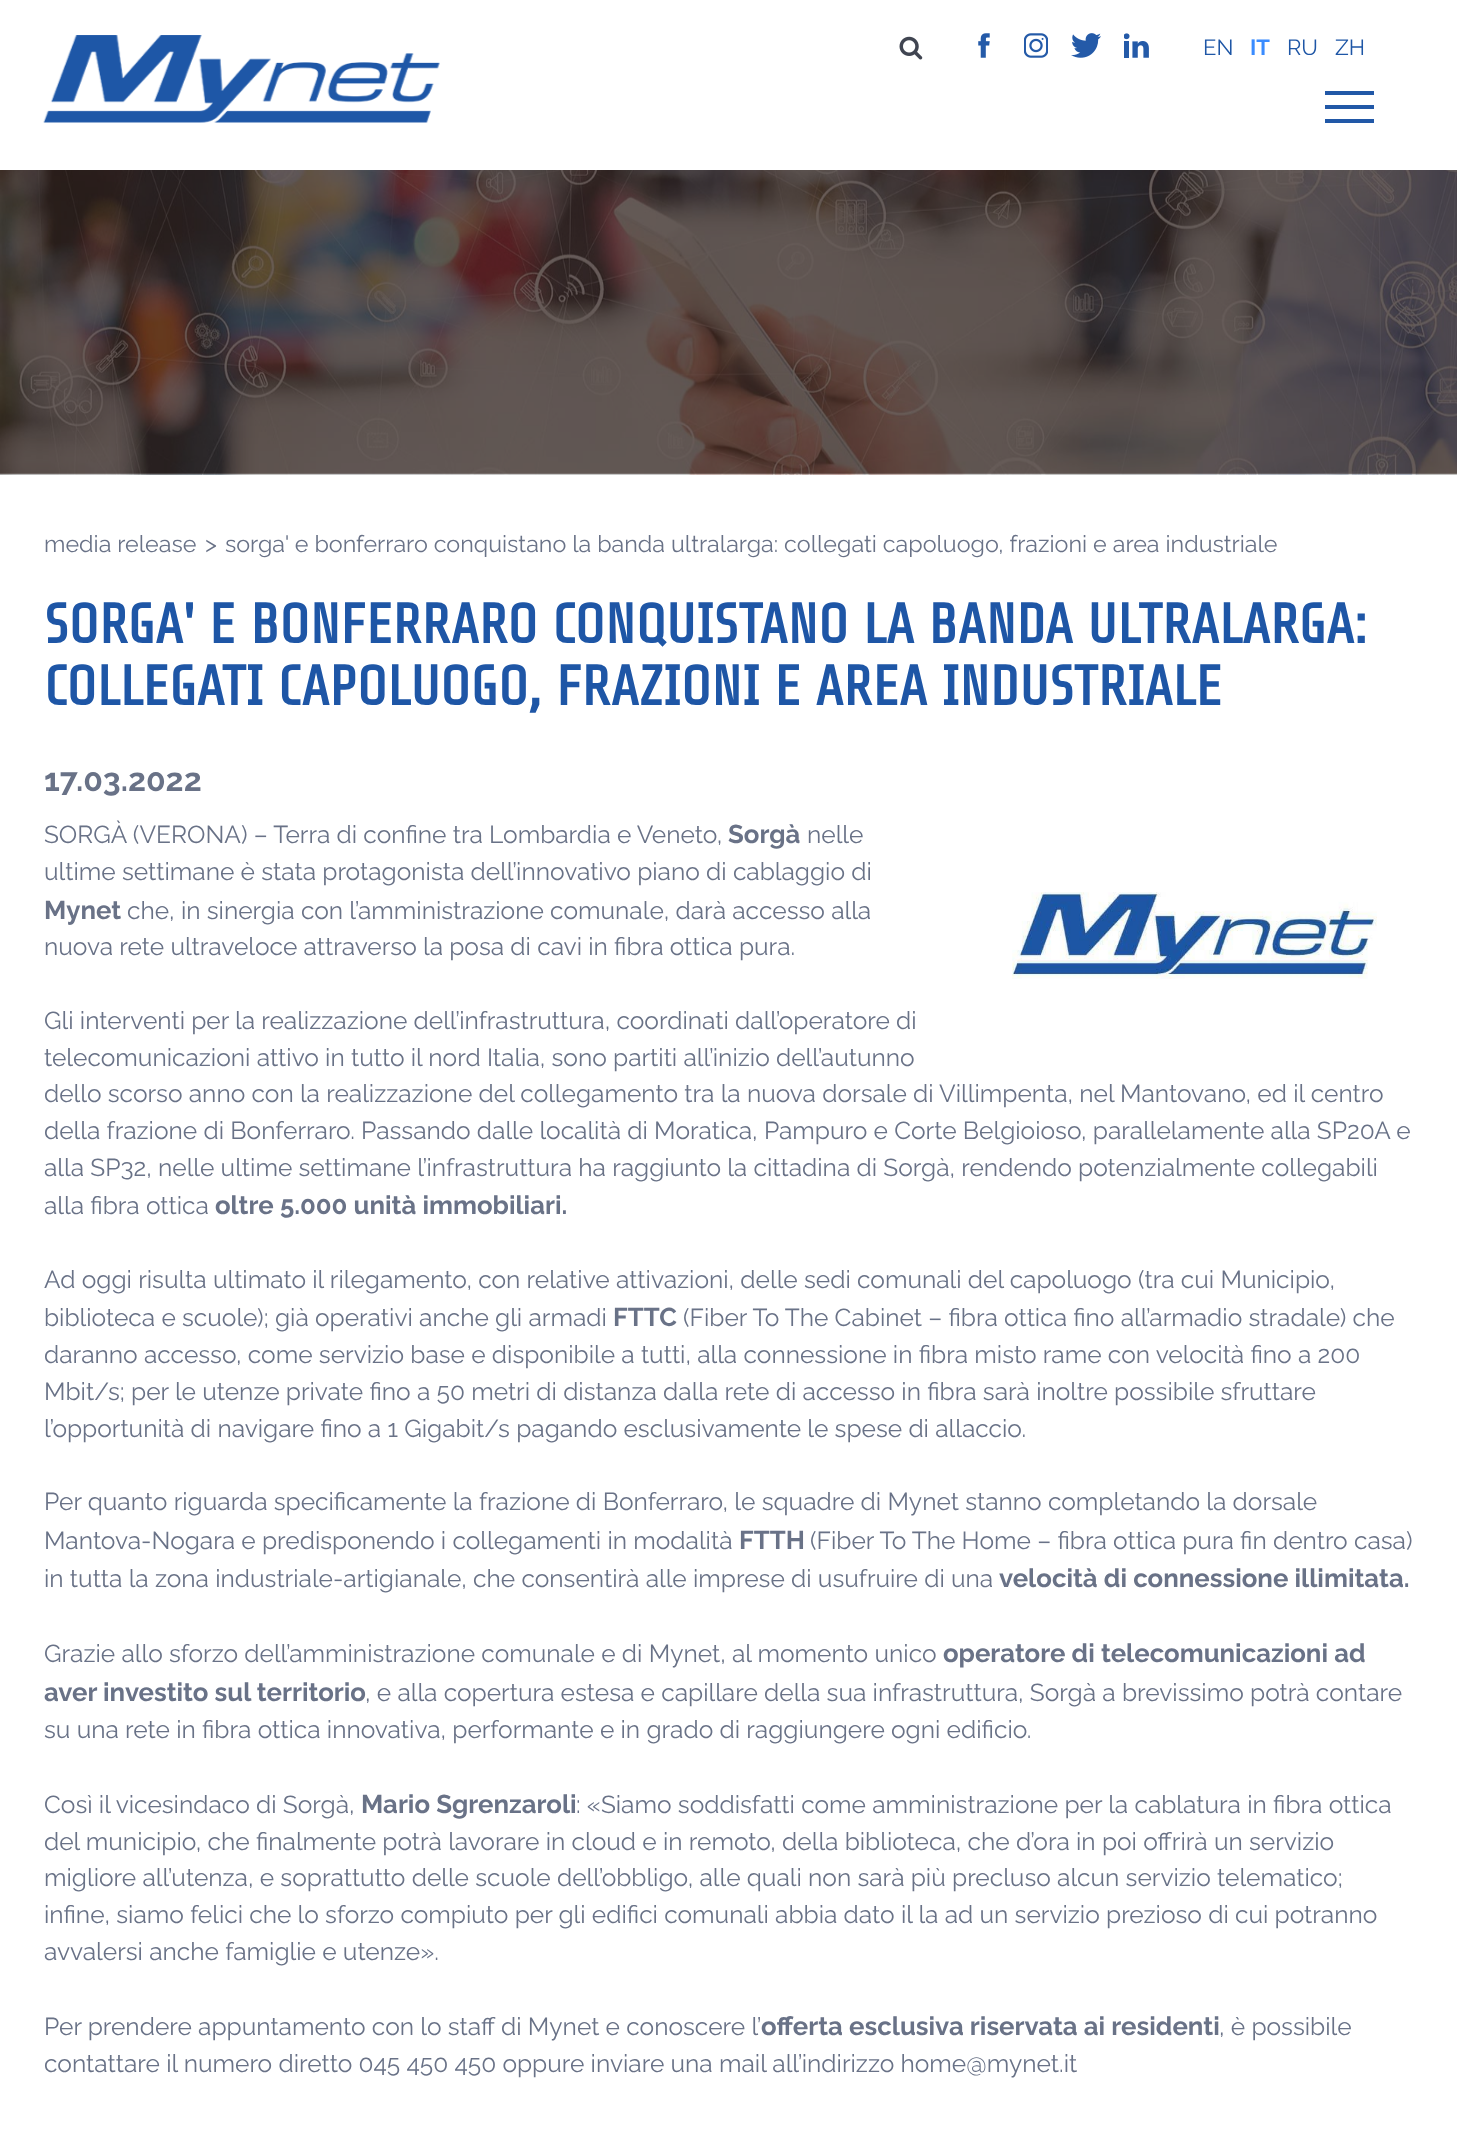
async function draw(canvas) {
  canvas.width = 1457;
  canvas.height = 2131;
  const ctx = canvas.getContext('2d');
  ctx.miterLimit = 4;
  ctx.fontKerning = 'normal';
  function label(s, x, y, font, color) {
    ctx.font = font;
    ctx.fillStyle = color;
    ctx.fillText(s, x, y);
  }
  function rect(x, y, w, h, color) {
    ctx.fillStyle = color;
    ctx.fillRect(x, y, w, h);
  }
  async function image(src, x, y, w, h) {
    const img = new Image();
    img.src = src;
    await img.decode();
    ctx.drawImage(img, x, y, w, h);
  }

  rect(0, 0, 1457, 2131, '#fff');
  await image('assets/img1.png', 43, 35, 397, 88);
  await image('assets/img2.png', 899, 36, 24, 24);
  await image('assets/img3.png', 978, 33, 12, 25);
  await image('assets/img4.png', 1024, 33, 24, 25);
  await image('assets/img5.png', 1071, 33, 30, 25);
  await image('assets/img6.png', 1124, 33, 25, 25);
  label('EN', 1203, 55, '100 22px Raleway', '#1e56a6');
  label('IT', 1250, 55, '100 22px "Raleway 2"', '#3a8cff');
  label('RU', 1287, 55, '100 22px Raleway', '#1e56a6');
  label('ZH', 1335, 55, '100 22px Raleway', '#1e56a6');
  rect(1325, 91, 49, 4, '#2158a7');
  rect(1325, 105, 49, 4, '#2158a7');
  rect(1325, 119, 49, 4, '#2158a7');
  await image('assets/img7.png', 0, 170, 1457, 305);
  label('media release', 44, 552, '100 23.3px Raleway', '#697287');
  label('>', 205, 552, '100 23.3px Raleway', '#697287');
  label('sorga\' e bonferraro conquistano la banda ultralarga: collegati capoluogo, frazioni e area industriale', 225, 552, '100 23.3px Raleway', '#697287');
  label('SORGA\' E BONFERRARO CONQUISTANO LA BANDA ULTRALARGA:', 44, 643, 'bold 56px Share Tech', '#1e56a6');
  label('COLLEGATI CAPOLUOGO, FRAZIONI E AREA INDUSTRIALE', 44, 705, 'bold 56px Share Tech', '#1e56a6');
  label('17.03.2022', 44, 791, '100 32px "Raleway 2"', '#697287');
  label('SORGÀ (VERONA) – Terra di confine tra Lombardia e Veneto,', 44, 843, '100 24.5px Raleway', '#697287');
  label('Sorgà', 728, 843, '100 25.75px "Raleway 2"', '#697287');
  label('nelle', 807, 843, '100 24.5px Raleway', '#697287');
  label('ultime settimane è stata protagonista dell’innovativo piano di cablaggio di', 44, 880, '100 24.5px Raleway', '#697287');
  label('Mynet', 44, 919, '100 25.75px "Raleway 2"', '#697287');
  label('che, in sinergia con l’amministrazione comunale, darà accesso alla', 127, 919, '100 24.5px Raleway', '#697287');
  await image('assets/img8.png', 1012, 892, 365, 87);
  label('nuova rete ultraveloce attraverso la posa di cavi in fibra ottica pura.', 44, 955, '100 24.5px Raleway', '#697287');
  label('Gli interventi per la realizzazione dell’infrastruttura, coordinati dall’operatore di', 44, 1029, '100 24.5px Raleway', '#697287');
  label('telecomunicazioni attivo in tutto il nord Italia, sono partiti all’inizio dell’autunno', 44, 1066, '100 24.5px Raleway', '#697287');
  label('dello scorso anno con la realizzazione del collegamento tra la nuova dorsale di Villimpenta, nel Mantovano, ed il centro', 44, 1102, '100 24.5px Raleway', '#697287');
  label('della frazione di Bonferraro. Passando dalle località di Moratica, Pampuro e Corte Belgioioso, parallelamente alla SP20A e', 44, 1139, '100 24.5px Raleway', '#697287');
  label('alla SP32, nelle ultime settimane l’infrastruttura ha raggiunto la cittadina di Sorgà, rendendo potenzialmente collegabili', 44, 1176, '100 24.5px Raleway', '#697287');
  label('alla fibra ottica', 44, 1214, '100 24.5px Raleway', '#697287');
  label('oltre 5.000 unità immobiliari.', 215, 1214, '100 25.75px "Raleway 2"', '#697287');
  label('Ad oggi risulta ultimato il rilegamento, con relative attivazioni, delle sedi comunali del capoluogo (tra cui Municipio,', 44, 1288, '100 24.5px Raleway', '#697287');
  label('biblioteca e scuole); già operativi anche gli armadi', 44, 1326, '100 24.5px Raleway', '#697287');
  label('FTTC', 613, 1326, '100 25.75px "Raleway 2"', '#697287');
  label('(Fiber To The Cabinet – fibra ottica fino all’armadio stradale) che', 683, 1326, '100 24.5px Raleway', '#697287');
  label('daranno accesso, come servizio base e disponibile a tutti, alla connessione in fibra misto rame con velocità fino a 200', 44, 1363, '100 24.5px Raleway', '#697287');
  label('Mbit/s; per le utenze private fino a 50 metri di distanza dalla rete di accesso in fibra sarà inoltre possibile sfruttare', 44, 1400, '100 24.5px Raleway', '#697287');
  label('l’opportunità di navigare fino a 1 Gigabit/s pagando esclusivamente le spese di allaccio.', 44, 1437, '100 24.5px Raleway', '#697287');
  label('Per quanto riguarda specificamente la frazione di Bonferraro, le squadre di Mynet stanno completando la dorsale', 44, 1510, '100 24.5px Raleway', '#697287');
  label('Mantova-Nogara e predisponendo i collegamenti in modalità', 44, 1549, '100 24.5px Raleway', '#697287');
  label('FTTH', 739, 1549, '100 25.75px "Raleway 2"', '#697287');
  label('(Fiber To The Home – fibra ottica pura fin dentro casa)', 810, 1549, '100 24.5px Raleway', '#697287');
  label('in tutta la zona industriale-artigianale, che consentirà alle imprese di usufruire di una', 44, 1587, '100 24.5px Raleway', '#697287');
  label('velocità di connessione illimitata.', 999, 1587, '100 25.75px "Raleway 2"', '#697287');
  label('Grazie allo sforzo dell’amministrazione comunale e di Mynet, al momento unico', 44, 1662, '100 24.5px Raleway', '#697287');
  label('operatore di telecomunicazioni ad', 943, 1662, '100 25.75px "Raleway 2"', '#697287');
  label('aver investito sul territorio', 44, 1701, '100 25.75px "Raleway 2"', '#697287');
  label(', e alla copertura estesa e capillare della sua infrastruttura, Sorgà a brevissimo potrà contare', 365, 1701, '100 24.5px Raleway', '#697287');
  label('su una rete in fibra ottica innovativa, performante e in grado di raggiungere ogni edificio.', 44, 1738, '100 24.5px Raleway', '#697287');
  label('Così il vicesindaco di Sorgà,', 44, 1813, '100 24.5px Raleway', '#697287');
  label('Mario Sgrenzaroli', 361, 1813, '100 25.75px "Raleway 2"', '#697287');
  label(': «Siamo soddisfatti come amministrazione per la cablatura in fibra ottica', 576, 1813, '100 24.5px Raleway', '#697287');
  label('del municipio, che finalmente potrà lavorare in cloud e in remoto, della biblioteca, che d’ora in poi offrirà un servizio', 44, 1850, '100 24.5px Raleway', '#697287');
  label('migliore all’utenza, e soprattutto delle scuole dell’obbligo, alle quali non sarà più precluso alcun servizio telematico;', 44, 1886, '100 24.5px Raleway', '#697287');
  label('infine, siamo felici che lo sforzo compiuto per gli edifici comunali abbia dato il la ad un servizio prezioso di cui potranno', 44, 1923, '100 24.5px Raleway', '#697287');
  label('avvalersi anche famiglie e utenze».', 44, 1960, '100 24.5px Raleway', '#697287');
  label('Per prendere appuntamento con lo staff di Mynet e conoscere l’', 44, 2035, '100 24.5px Raleway', '#697287');
  label('offerta esclusiva riservata ai residenti', 761, 2035, '100 25.75px "Raleway 2"', '#697287');
  label(', è possibile', 1219, 2035, '100 24.5px Raleway', '#697287');
  label('contattare il numero diretto 045 450 450 oppure inviare una mail all’indirizzo home@mynet.it', 44, 2072, '100 24.5px Raleway', '#697287');
}

draw(document.querySelector('canvas'));
